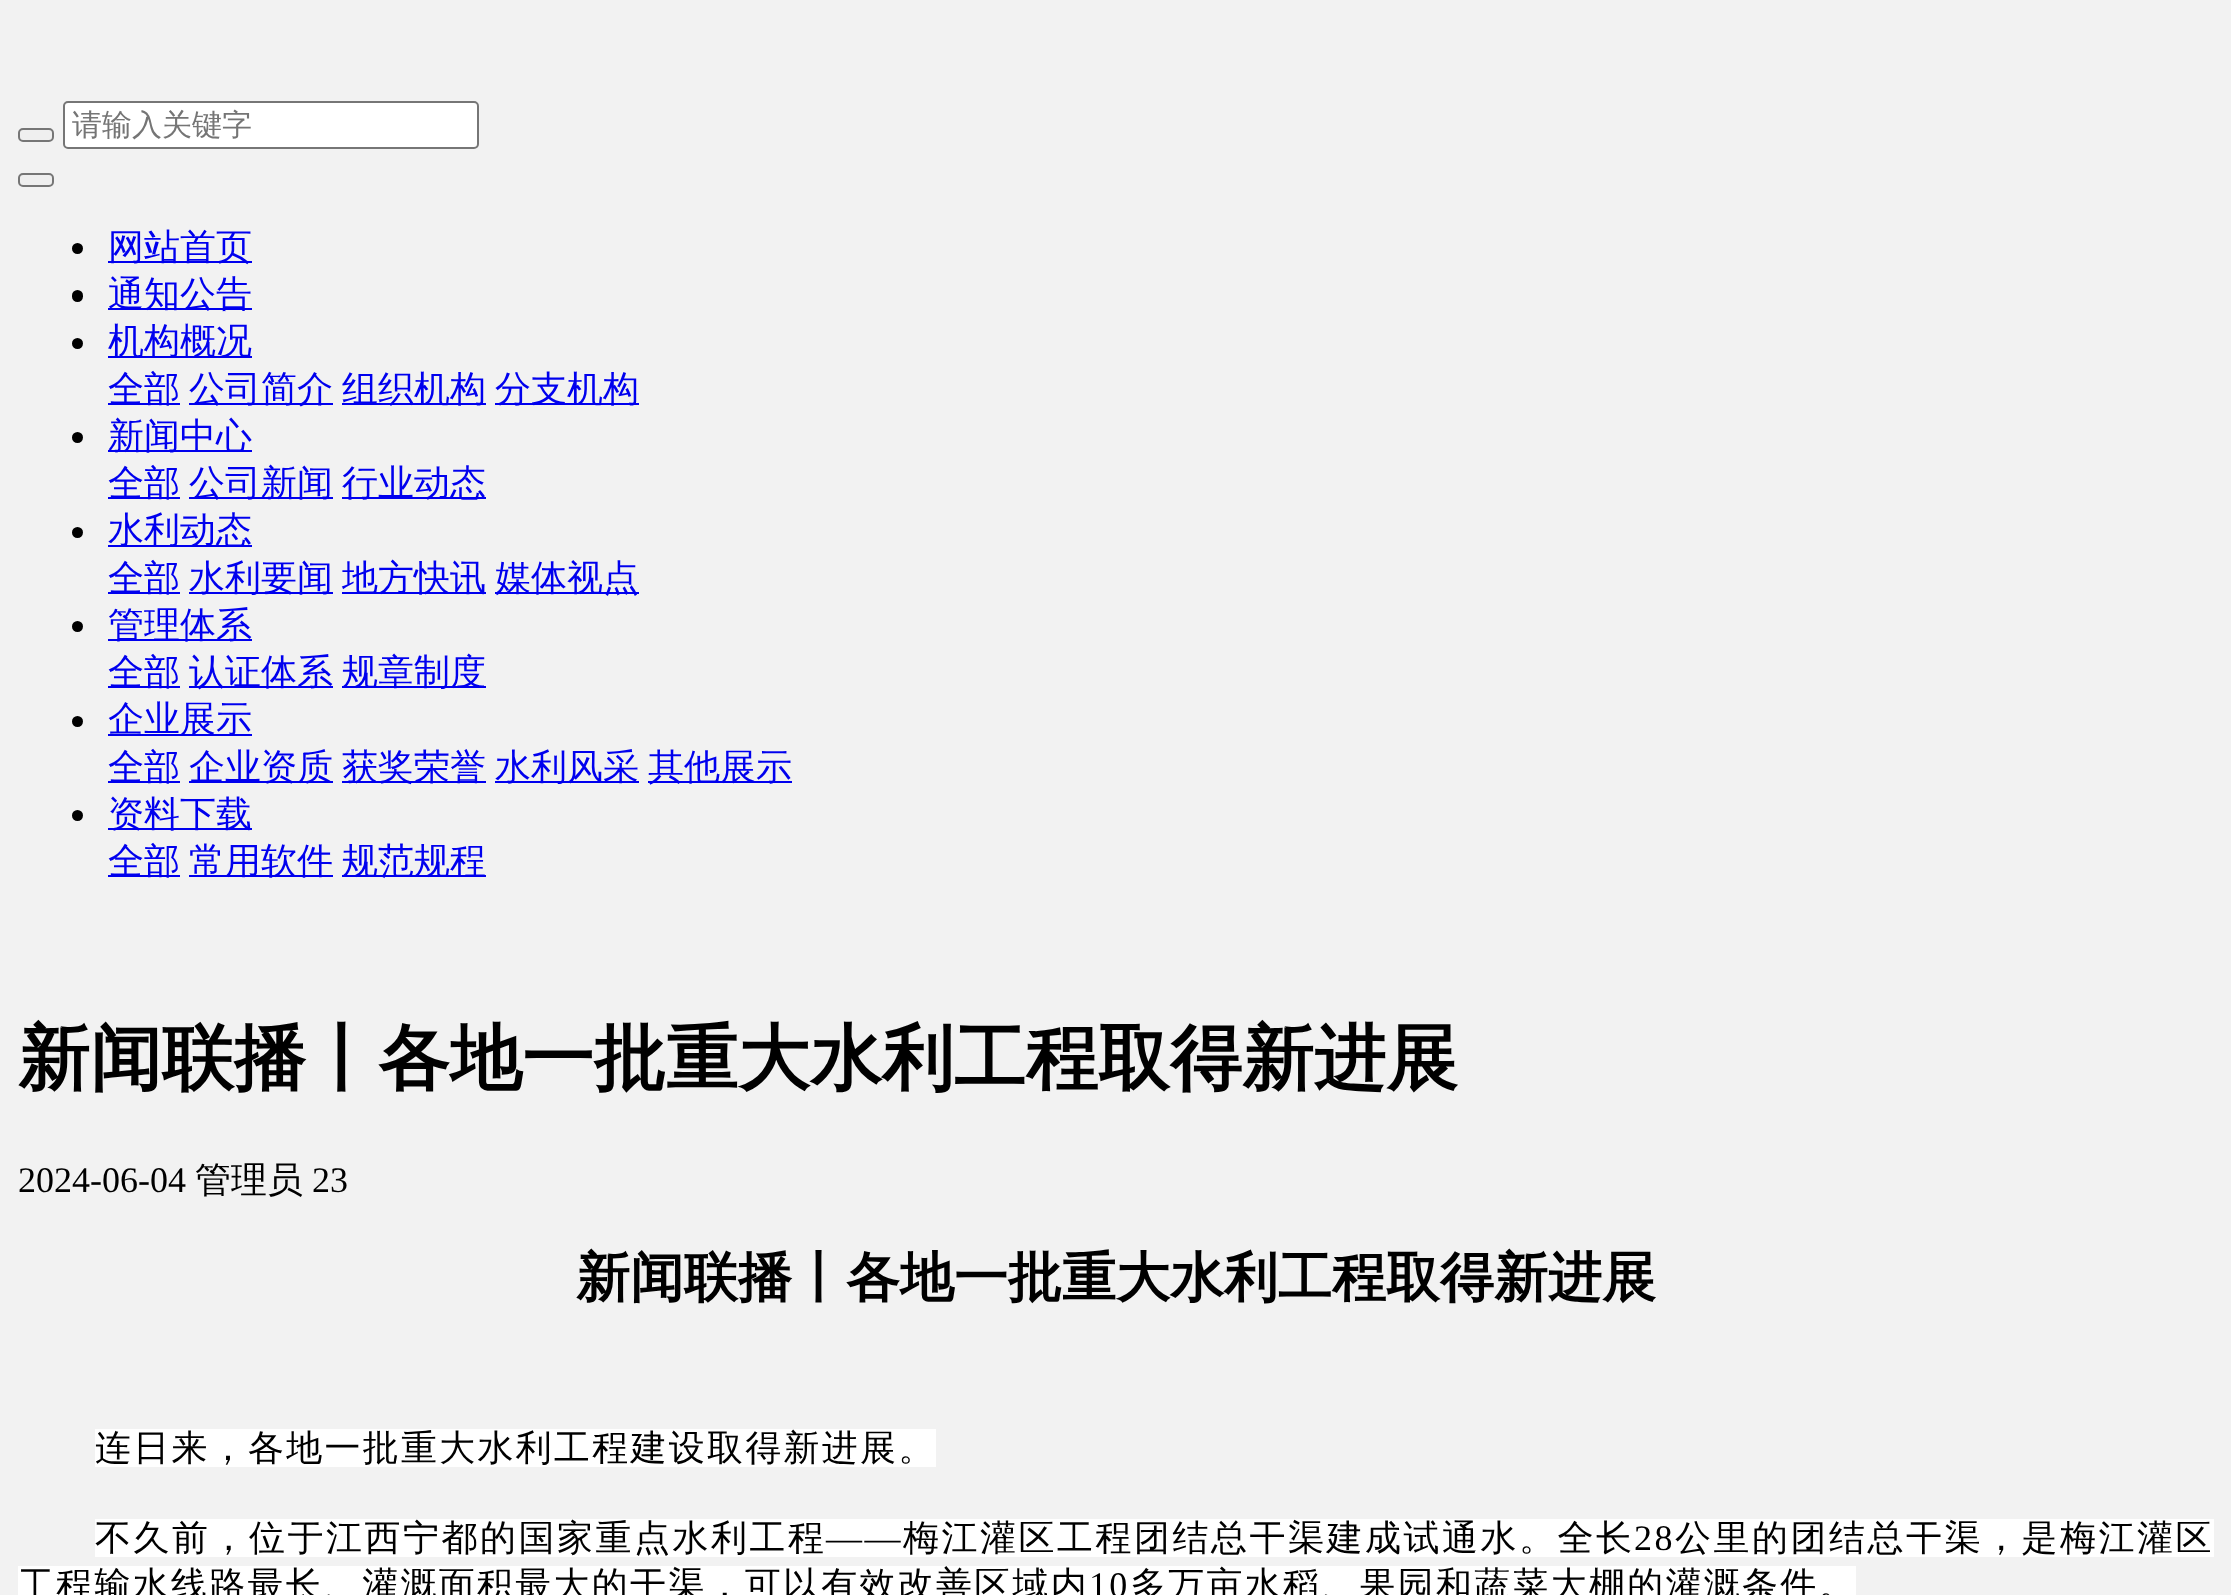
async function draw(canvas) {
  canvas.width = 2231;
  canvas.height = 1595;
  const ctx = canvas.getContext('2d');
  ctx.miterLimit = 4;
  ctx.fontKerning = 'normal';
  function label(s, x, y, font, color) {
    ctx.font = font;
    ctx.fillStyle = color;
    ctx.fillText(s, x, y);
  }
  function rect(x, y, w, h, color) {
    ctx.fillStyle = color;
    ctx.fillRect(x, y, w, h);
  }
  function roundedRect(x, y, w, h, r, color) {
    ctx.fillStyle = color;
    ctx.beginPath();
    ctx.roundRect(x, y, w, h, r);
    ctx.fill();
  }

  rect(0, 0, 2231, 1595, '#f2f2f2');
  ctx.fillStyle = '#efefef';
  ctx.beginPath();
  ctx.roundRect(19, 129, 34, 12, 4);
  ctx.fill();
  ctx.strokeStyle = '#767676';
  ctx.lineWidth = 2;
  ctx.stroke();
  ctx.fillStyle = '#fff';
  ctx.beginPath();
  ctx.roundRect(64, 102, 414, 46, 4);
  ctx.fill();
  ctx.stroke();
  label('请输入关键字', 72, 135, '500 30px WenQuanYi Zen Hei', '#757575');
  ctx.fillStyle = '#efefef';
  ctx.beginPath();
  ctx.roundRect(19, 174, 34, 12, 4);
  ctx.fill();
  ctx.stroke();
  ctx.fillStyle = '#000';
  ctx.beginPath();
  ctx.arc(77.5, 248.5, 5.5, 0, 2 * Math.PI);
  ctx.fill();
  rect(108, 261, 144, 2, '#00e');
  label('网站首页', 108, 259, '500 36px WenQuanYi Zen Hei', '#00e');
  roundedRect(72, 290, 11, 12, 5.5, '#000');
  rect(108, 308, 144, 2, '#00e');
  label('通知公告', 108, 306, '500 36px WenQuanYi Zen Hei', '#00e');
  ctx.fillStyle = '#000';
  ctx.beginPath();
  ctx.arc(77.5, 343.5, 5.5, 0, 2 * Math.PI);
  ctx.fill();
  rect(108, 356, 144, 2, '#00e');
  label('机构概况', 108, 353, '500 36px WenQuanYi Zen Hei', '#00e');
  rect(108, 403, 72, 2, '#00e');
  label('全部', 108, 401, '500 36px WenQuanYi Zen Hei', '#00e');
  rect(189, 403, 144, 2, '#00e');
  label('公司简介', 189, 401, '500 36px WenQuanYi Zen Hei', '#00e');
  rect(342, 403, 144, 2, '#00e');
  label('组织机构', 342, 401, '500 36px WenQuanYi Zen Hei', '#00e');
  rect(495, 403, 144, 2, '#00e');
  label('分支机构', 495, 401, '500 36px WenQuanYi Zen Hei', '#00e');
  ctx.fillStyle = '#000';
  ctx.beginPath();
  ctx.arc(77.5, 437.5, 5.5, 0, 2 * Math.PI);
  ctx.fill();
  rect(108, 450, 144, 2, '#00e');
  label('新闻中心', 108, 448, '500 36px WenQuanYi Zen Hei', '#00e');
  rect(108, 497, 72, 2, '#00e');
  label('全部', 108, 495, '500 36px WenQuanYi Zen Hei', '#00e');
  rect(189, 497, 144, 2, '#00e');
  label('公司新闻', 189, 495, '500 36px WenQuanYi Zen Hei', '#00e');
  rect(342, 497, 144, 2, '#00e');
  label('行业动态', 342, 495, '500 36px WenQuanYi Zen Hei', '#00e');
  ctx.fillStyle = '#000';
  ctx.beginPath();
  ctx.arc(77.5, 532.5, 5.5, 0, 2 * Math.PI);
  ctx.fill();
  rect(108, 545, 144, 2, '#00e');
  label('水利动态', 108, 542, '500 36px WenQuanYi Zen Hei', '#00e');
  rect(108, 592, 72, 2, '#00e');
  label('全部', 108, 590, '500 36px WenQuanYi Zen Hei', '#00e');
  rect(189, 592, 144, 2, '#00e');
  label('水利要闻', 189, 590, '500 36px WenQuanYi Zen Hei', '#00e');
  rect(342, 592, 144, 2, '#00e');
  label('地方快讯', 342, 590, '500 36px WenQuanYi Zen Hei', '#00e');
  rect(495, 592, 144, 2, '#00e');
  label('媒体视点', 495, 590, '500 36px WenQuanYi Zen Hei', '#00e');
  ctx.fillStyle = '#000';
  ctx.beginPath();
  ctx.arc(77.5, 626.5, 5.5, 0, 2 * Math.PI);
  ctx.fill();
  rect(108, 639, 144, 2, '#00e');
  label('管理体系', 108, 637, '500 36px WenQuanYi Zen Hei', '#00e');
  rect(108, 686, 72, 2, '#00e');
  label('全部', 108, 684, '500 36px WenQuanYi Zen Hei', '#00e');
  rect(189, 686, 144, 2, '#00e');
  label('认证体系', 189, 684, '500 36px WenQuanYi Zen Hei', '#00e');
  rect(342, 686, 144, 2, '#00e');
  label('规章制度', 342, 684, '500 36px WenQuanYi Zen Hei', '#00e');
  ctx.fillStyle = '#000';
  ctx.beginPath();
  ctx.arc(77.5, 721.5, 5.5, 0, 2 * Math.PI);
  ctx.fill();
  rect(108, 734, 144, 2, '#00e');
  label('企业展示', 108, 731, '500 36px WenQuanYi Zen Hei', '#00e');
  rect(108, 781, 72, 2, '#00e');
  label('全部', 108, 779, '500 36px WenQuanYi Zen Hei', '#00e');
  rect(189, 781, 144, 2, '#00e');
  label('企业资质', 189, 779, '500 36px WenQuanYi Zen Hei', '#00e');
  rect(342, 781, 144, 2, '#00e');
  label('获奖荣誉', 342, 779, '500 36px WenQuanYi Zen Hei', '#00e');
  rect(495, 781, 144, 2, '#00e');
  label('水利风采', 495, 779, '500 36px WenQuanYi Zen Hei', '#00e');
  rect(648, 781, 144, 2, '#00e');
  label('其他展示', 648, 779, '500 36px WenQuanYi Zen Hei', '#00e');
  ctx.fillStyle = '#000';
  ctx.beginPath();
  ctx.arc(77.5, 815.5, 5.5, 0, 2 * Math.PI);
  ctx.fill();
  rect(108, 828, 144, 2, '#00e');
  label('资料下载', 108, 826, '500 36px WenQuanYi Zen Hei', '#00e');
  rect(108, 875, 72, 2, '#00e');
  label('全部', 108, 873, '500 36px WenQuanYi Zen Hei', '#00e');
  rect(189, 875, 144, 2, '#00e');
  label('常用软件', 189, 873, '500 36px WenQuanYi Zen Hei', '#00e');
  rect(342, 875, 144, 2, '#00e');
  label('规范规程', 342, 873, '500 36px WenQuanYi Zen Hei', '#00e');
  label('新闻联播丨各地一批重大水利工程取得新进展', 18, 1083, 'bold 72px WenQuanYi Zen Hei', '#000');
  label('2024-06-04', 18, 1192, '36px Liberation Serif', '#000');
  label('管理员', 195, 1192, '500 36px WenQuanYi Zen Hei', '#000');
  label('23', 312, 1192, '36px Liberation Serif', '#000');
  label('新闻联播丨各地一批重大水利工程取得新进展', 576, 1296, 'bold 54px WenQuanYi Zen Hei', '#000');
  rect(95, 1429, 841, 38, '#fff');
  ctx.letterSpacing = '2.25px';
  label('连日来，各地一批重大水利工程建设取得新进展。', 95, 1460, '500 36px WenQuanYi Zen Hei', '#000');
  rect(95, 1519, 2119, 38, '#fff');
  ctx.letterSpacing = '2.5px';
  label('不久前，位于江西宁都的国家重点水利工程', 95, 1550, '500 36px WenQuanYi Zen Hei', '#000');
  label('——', 826, 1550, '36px Liberation Serif', '#000');
  label('梅江灌区工程团结总干渠建成试通水。全长', 903, 1550, '500 36px WenQuanYi Zen Hei', '#000');
  label('28', 1634, 1550, '36px Liberation Serif', '#000');
  label('公里的团结总干渠，是梅江灌区', 1675, 1550, '500 36px WenQuanYi Zen Hei', '#000');
  rect(18, 1566, 1838, 29, '#fff');
  ctx.letterSpacing = '2.25px';
  label('工程输水线路最长、灌溉面积最大的干渠，可以有效改善区域内', 18, 1597, '500 36px WenQuanYi Zen Hei', '#000');
  label('10', 1089, 1597, '36px Liberation Serif', '#000');
  label('多万亩水稻、果园和蔬菜大棚的灌溉条件。', 1130, 1597, '500 36px WenQuanYi Zen Hei', '#000');
}

draw(document.querySelector('canvas'));
